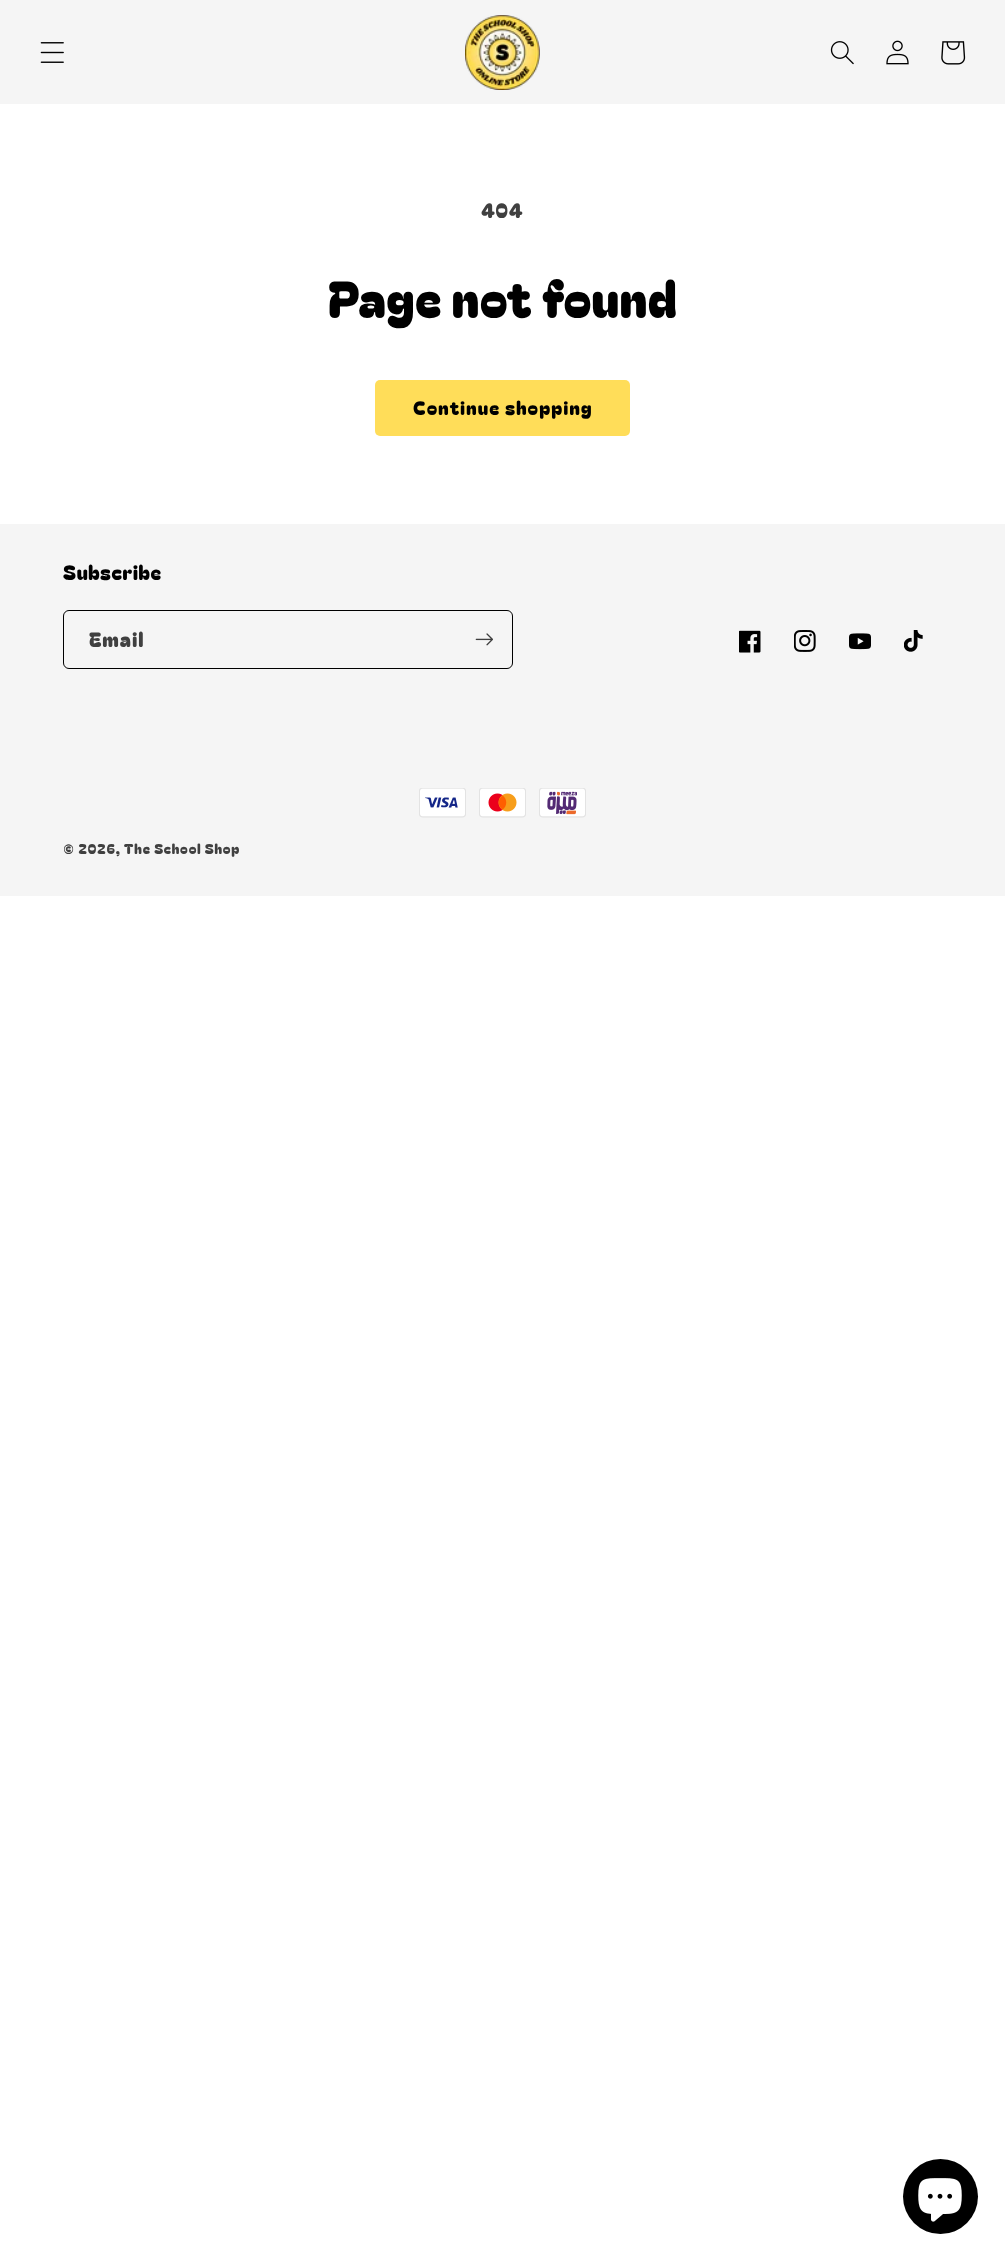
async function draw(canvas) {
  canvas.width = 1005;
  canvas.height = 2259;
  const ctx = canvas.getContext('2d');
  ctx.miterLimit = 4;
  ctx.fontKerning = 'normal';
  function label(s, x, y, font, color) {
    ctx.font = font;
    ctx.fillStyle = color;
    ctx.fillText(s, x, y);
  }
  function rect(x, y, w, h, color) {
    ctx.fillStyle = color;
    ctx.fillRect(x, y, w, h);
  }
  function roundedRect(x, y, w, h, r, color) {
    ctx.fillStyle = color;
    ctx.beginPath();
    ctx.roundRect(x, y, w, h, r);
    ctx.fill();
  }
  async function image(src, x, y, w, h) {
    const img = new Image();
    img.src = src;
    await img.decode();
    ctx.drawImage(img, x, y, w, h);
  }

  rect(0, 0, 1005, 2259, '#fff');
  rect(0, 0, 1005, 104, '#f5f5f5');
  await image('assets/img1.png', 40, 42, 24, 21);
  await image('assets/img2.png', 465, 15, 75, 75);
  await image('assets/img3.png', 830, 41, 24, 24);
  await image('assets/img4.png', 886, 40, 23, 25);
  await image('assets/img5.png', 941, 41, 25, 24);
  ctx.letterSpacing = '0.75px';
  label('404', 481, 218, '20px Bagel Fat One', '#404040');
  label('Page not found', 328, 318, '50px Bagel Fat One', '#000');
  roundedRect(375, 380, 255, 56, 5, '#ffdd59');
  ctx.letterSpacing = '1.25px';
  label('Continue shopping', 413, 415, '18.75px Bagel Fat One', '#000');
  rect(0, 524, 1005, 372, '#f5f5f5');
  ctx.letterSpacing = '0.75px';
  label('Subscribe', 63, 580, '20px Bagel Fat One', '#000');
  ctx.beginPath();
  ctx.roundRect(63.5, 610.5, 449, 58, 5.5);
  ctx.strokeStyle = '#000';
  ctx.stroke();
  ctx.letterSpacing = '1.25px';
  label('Email', 89, 647, '20px Bagel Fat One', '#404040');
  await image('assets/img6.png', 475, 633, 18, 13);
  await image('assets/img7.png', 739, 630, 22, 23);
  await image('assets/img8.png', 794, 630, 22, 22);
  await image('assets/img9.png', 849, 633, 22, 17);
  await image('assets/img10.png', 904, 630, 19, 22);
  await image('assets/img11.png', 419, 788, 47, 30);
  await image('assets/img12.png', 479, 788, 47, 30);
  await image('assets/img13.png', 539, 788, 47, 30);
  ctx.letterSpacing = '0.9px';
  label('© 2026, The School Shop', 63, 854, '13.75px Bagel Fat One', '#404040');
  ctx.fillStyle = '#000';
  ctx.beginPath();
  ctx.arc(940.5, 2196.5, 37.5, 0, 2 * Math.PI);
  ctx.fill();
  await image('assets/img14.png', 918, 2178, 44, 44);
}

draw(document.querySelector('canvas'));
